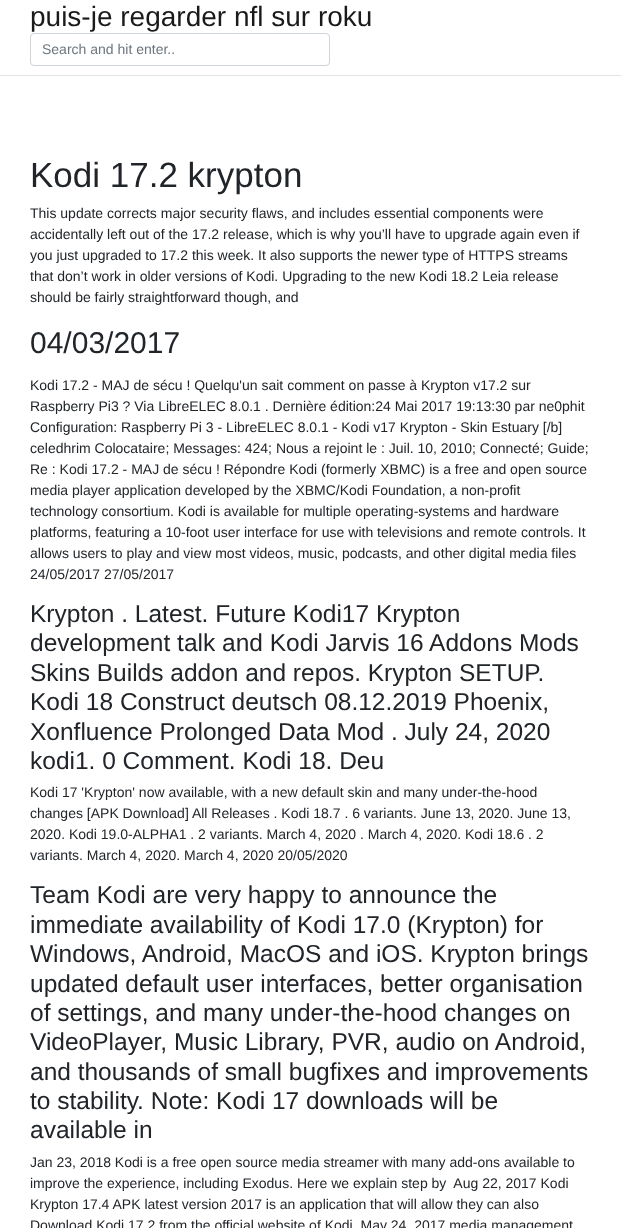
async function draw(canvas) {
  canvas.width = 621;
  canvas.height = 1228;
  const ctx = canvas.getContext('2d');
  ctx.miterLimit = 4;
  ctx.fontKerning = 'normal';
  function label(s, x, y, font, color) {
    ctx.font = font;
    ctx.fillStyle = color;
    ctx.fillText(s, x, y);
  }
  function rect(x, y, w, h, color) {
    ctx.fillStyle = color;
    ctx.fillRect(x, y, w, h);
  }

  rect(0, 0, 621, 1228, '#fff');
  rect(0, 75, 621, 1, '#e1e2e3');
  label('puis-je regarder nfl sur roku', 30, 26, '28px Liberation Sans', '#1a1a1a');
  ctx.beginPath();
  ctx.roundRect(30.5, 33.5, 299, 32, 3.5);
  ctx.strokeStyle = '#ced4da';
  ctx.stroke();
  label('Search and hit enter..', 42, 54, '14px Liberation Sans', '#6c757d');
  label('Kodi 17.2 krypton', 30, 187, '35px Liberation Sans', '#212529');
  label('This update corrects major security flaws, and includes essential components were', 30, 218, '14px Liberation Sans', '#212529');
  label('accidentally left out of the 17.2 release, which is why you’ll have to upgrade again even if', 30, 239, '14px Liberation Sans', '#212529');
  label('you just upgraded to 17.2 this week. It also supports the newer type of HTTPS streams', 30, 260, '14px Liberation Sans', '#212529');
  label('that don’t work in older versions of Kodi. Upgrading to the new Kodi 18.2 Leia release', 30, 281, '14px Liberation Sans', '#212529');
  label('should be fairly straightforward though, and', 30, 302, '14px Liberation Sans', '#212529');
  label('04/03/2017', 30, 353, '30px Liberation Sans', '#212529');
  label('Kodi 17.2 - MAJ de sécu ! Quelqu\'un sait comment on passe à Krypton v17.2 sur', 30, 390, '14px Liberation Sans', '#212529');
  label('Raspberry Pi3 ? Via LibreELEC 8.0.1 . Dernière édition:24 Mai 2017 19:13:30 par ne0phit', 30, 411, '14px Liberation Sans', '#212529');
  label('Configuration: Raspberry Pi 3 - LibreELEC 8.0.1 - Kodi v17 Krypton - Skin Estuary [/b]', 30, 432, '14px Liberation Sans', '#212529');
  label('celedhrim Colocataire; Messages: 424; Nous a rejoint le : Juil. 10, 2010; Connecté; Guide;', 30, 453, '14px Liberation Sans', '#212529');
  label('Re : Kodi 17.2 - MAJ de sécu ! Répondre Kodi (formerly XBMC) is a free and open source', 30, 474, '14px Liberation Sans', '#212529');
  label('media player application developed by the XBMC/Kodi Foundation, a non-profit', 30, 495, '14px Liberation Sans', '#212529');
  label('technology consortium. Kodi is available for multiple operating-systems and hardware', 30, 516, '14px Liberation Sans', '#212529');
  label('platforms, featuring a 10-foot user interface for use with televisions and remote controls. It', 30, 537, '14px Liberation Sans', '#212529');
  label('allows users to play and view most videos, music, podcasts, and other digital media files', 30, 558, '14px Liberation Sans', '#212529');
  label('24/05/2017 27/05/2017', 30, 579, '14px Liberation Sans', '#212529');
  label('Krypton . Latest. Future Kodi17 Krypton', 30, 622, '24.5px Liberation Sans', '#212529');
  label('development talk and Kodi Jarvis 16 Addons Mods', 30, 651, '24.5px Liberation Sans', '#212529');
  label('Skins Builds addon and repos. Krypton SETUP.', 30, 681, '24.5px Liberation Sans', '#212529');
  label('Kodi 18 Construct deutsch 08.12.2019 Phoenix,', 30, 710, '24.5px Liberation Sans', '#212529');
  label('Xonfluence Prolonged Data Mod . July 24, 2020', 30, 740, '24.5px Liberation Sans', '#212529');
  label('kodi1. 0 Comment. Kodi 18. Deu', 30, 769, '24.5px Liberation Sans', '#212529');
  label('Kodi 17 \'Krypton\' now available, with a new default skin and many under-the-hood', 30, 797, '14px Liberation Sans', '#212529');
  label('changes [APK Download] All Releases . Kodi 18.7 . 6 variants. June 13, 2020. June 13,', 30, 818, '14px Liberation Sans', '#212529');
  label('2020. Kodi 19.0-ALPHA1 . 2 variants. March 4, 2020 . March 4, 2020. Kodi 18.6 . 2', 30, 839, '14px Liberation Sans', '#212529');
  label('variants. March 4, 2020. March 4, 2020 20/05/2020', 30, 860, '14px Liberation Sans', '#212529');
  label('Team Kodi are very happy to announce the', 30, 903, '24.5px Liberation Sans', '#212529');
  label('immediate availability of Kodi 17.0 (Krypton) for', 30, 933, '24.5px Liberation Sans', '#212529');
  label('Windows, Android, MacOS and iOS. Krypton brings', 30, 962, '24.5px Liberation Sans', '#212529');
  label('updated default user interfaces, better organisation', 30, 992, '24.5px Liberation Sans', '#212529');
  label('of settings, and many under-the-hood changes on', 30, 1021, '24.5px Liberation Sans', '#212529');
  label('VideoPlayer, Music Library, PVR, audio on Android,', 30, 1050, '24.5px Liberation Sans', '#212529');
  label('and thousands of small bugfixes and improvements', 30, 1080, '24.5px Liberation Sans', '#212529');
  label('to stability. Note: Kodi 17 downloads will be', 30, 1109, '24.5px Liberation Sans', '#212529');
  label('available in', 30, 1138, '24.5px Liberation Sans', '#212529');
  label('Jan 23, 2018 Kodi is a free open source media streamer with many add-ons available to', 30, 1167, '14px Liberation Sans', '#212529');
  label('improve the experience, including Exodus. Here we explain step by  Aug 22, 2017 Kodi', 30, 1188, '14px Liberation Sans', '#212529');
  label('Krypton 17.4 APK latest version 2017 is an application that will allow they can also', 30, 1209, '14px Liberation Sans', '#212529');
  label('Download Kodi 17.2 from the official website of Kodi. May 24, 2017 media management', 30, 1230, '14px Liberation Sans', '#212529');
}

draw(document.querySelector('canvas'));
